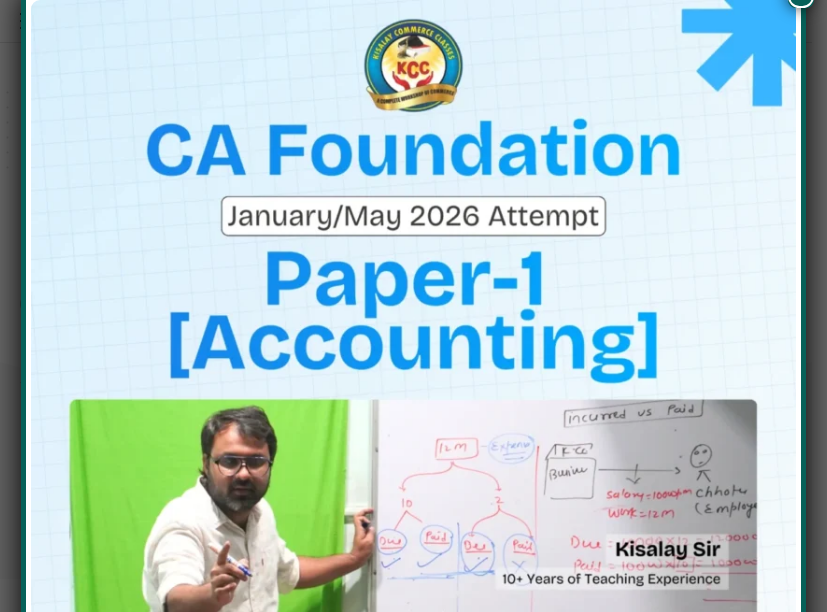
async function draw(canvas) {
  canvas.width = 827;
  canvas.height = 612;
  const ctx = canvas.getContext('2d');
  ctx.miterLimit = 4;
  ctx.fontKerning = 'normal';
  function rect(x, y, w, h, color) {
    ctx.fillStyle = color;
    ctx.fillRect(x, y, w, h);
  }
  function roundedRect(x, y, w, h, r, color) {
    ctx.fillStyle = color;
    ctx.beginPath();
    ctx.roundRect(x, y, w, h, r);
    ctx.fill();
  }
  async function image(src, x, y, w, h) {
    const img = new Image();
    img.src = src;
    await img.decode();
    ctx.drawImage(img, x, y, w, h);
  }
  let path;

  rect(0, 0, 827, 612, '#666');
  roundedRect(20, 13, 24, 2, 1, '#101010');
  roundedRect(20, 20, 16, 2, 1, '#101010');
  roundedRect(20, 27, 10, 2, 1, '#101010');
  rect(0, 42, 812, 1, '#5b5b5b');
  path = new Path2D('M7.5 92.5H802.7');
  ctx.strokeStyle = '#5a5a5a';
  ctx.lineWidth = 2;
  ctx.lineCap = 'round';
  ctx.setLineDash([0, 15]);
  ctx.stroke(path);
  path = new Path2D('M7.5 107.5H802.7');
  ctx.stroke(path);
  path = new Path2D('M7.5 122.5H802.7');
  ctx.strokeStyle = '#14141426';
  ctx.stroke(path);
  path = new Path2D('M7.5 137.5H802.7');
  ctx.stroke(path);
  path = new Path2D('M7.5 152.5H802.7');
  ctx.strokeStyle = '#5a5a5a';
  ctx.stroke(path);
  path = new Path2D('M7.5 167.5H802.7');
  ctx.stroke(path);
  await image('assets/img2.png', 20, 299, 1, 10);
  rect(0, 362, 812, 48, '#636363');
  ctx.save();
  ctx.beginPath();
  ctx.rect(0, 359, 812, 80);
  ctx.clip();
  ctx.fillStyle = '#666';
  path = new Path2D('M619 394L522 381L271 437L-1 362V359H813V362');
  ctx.fill(path);
  ctx.restore();
  await image('assets/img3.png', 20, 382, 1, 2);
  rect(0, 410, 812, 169, '#636363');
  ctx.fillStyle = '#020202';
  ctx.filter = 'blur(15px)';
  ctx.beginPath();
  ctx.roundRect(21, -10, 785, 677, 10);
  ctx.fill();
  ctx.filter = 'none';
  ctx.fillStyle = '#fff';
  ctx.beginPath();
  ctx.rect(23.5, -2.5, 780, 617);
  ctx.fill();
  ctx.strokeStyle = '#076159';
  ctx.lineWidth = 5;
  ctx.setLineDash([]);
  ctx.stroke();
  await image('assets/img1.png', 31, 0, 765, 612);
  ctx.fillStyle = '#020202bf';
  ctx.filter = 'blur(7.5px)';
  ctx.beginPath();
  ctx.roundRect(787, -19, 28, 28, 14);
  ctx.fill();
  ctx.filter = 'none';
  ctx.fillStyle = '#076159';
  ctx.beginPath();
  ctx.roundRect(788, 0, 26, 8, [0, 0, 13, 13]);
  ctx.fill();
  ctx.beginPath();
  ctx.roundRect(789, -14, 24, 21, 12);
  ctx.strokeStyle = '#fff';
  ctx.lineWidth = 2;
  ctx.stroke();
}

draw(document.querySelector('canvas'));
